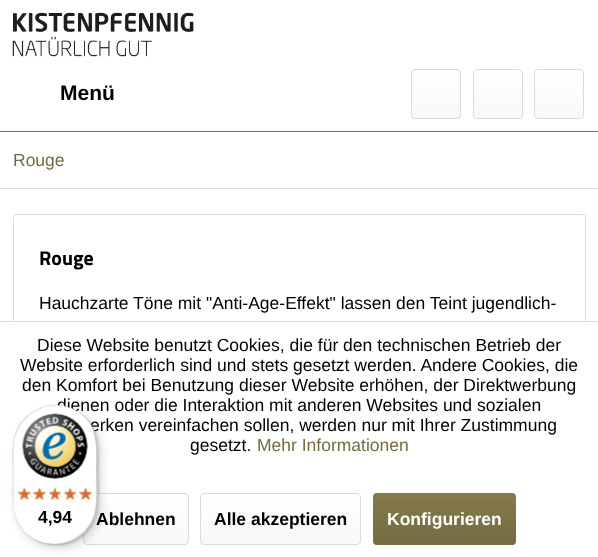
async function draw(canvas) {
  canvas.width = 598;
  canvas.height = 557;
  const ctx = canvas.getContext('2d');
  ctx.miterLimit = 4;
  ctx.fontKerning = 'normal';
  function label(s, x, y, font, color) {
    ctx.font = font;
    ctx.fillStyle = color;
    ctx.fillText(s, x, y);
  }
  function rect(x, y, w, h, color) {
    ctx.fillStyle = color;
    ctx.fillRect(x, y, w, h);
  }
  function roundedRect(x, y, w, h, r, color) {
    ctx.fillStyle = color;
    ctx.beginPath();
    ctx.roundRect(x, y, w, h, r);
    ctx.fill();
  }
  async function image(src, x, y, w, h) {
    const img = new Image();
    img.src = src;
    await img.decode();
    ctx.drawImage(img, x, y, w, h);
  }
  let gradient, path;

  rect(0, 0, 598, 557, '#fff');
  rect(0, 131, 598, 1, '#746b41');
  await image('assets/img1.png', 12, 12, 182, 45);
  label('Menü', 60, 100, 'bold 21px Liberation Sans', '#000');
  gradient = ctx.createLinearGradient(436, 70, 436, 118);
  gradient.addColorStop(0, '#fff');
  gradient.addColorStop(1, '#f8f8fa');
  ctx.fillStyle = gradient;
  ctx.beginPath();
  ctx.roundRect(413, 70, 47, 48, 2.5);
  ctx.fill();
  ctx.beginPath();
  ctx.roundRect(411.5, 69.5, 49, 49, 3.5);
  ctx.strokeStyle = '#dadae5';
  ctx.stroke();
  gradient = ctx.createLinearGradient(498, 70, 498, 118);
  gradient.addColorStop(0, '#fff');
  gradient.addColorStop(1, '#f8f8fa');
  ctx.fillStyle = gradient;
  ctx.beginPath();
  ctx.roundRect(474, 70, 47, 48, 2.5);
  ctx.fill();
  ctx.beginPath();
  ctx.roundRect(473.5, 69.5, 49, 49, 3.5);
  ctx.stroke();
  gradient = ctx.createLinearGradient(559, 70, 559, 118);
  gradient.addColorStop(0, '#fff');
  gradient.addColorStop(1, '#f8f8fa');
  ctx.fillStyle = gradient;
  ctx.beginPath();
  ctx.roundRect(535, 70, 48, 48, 2.5);
  ctx.fill();
  ctx.beginPath();
  ctx.roundRect(534.5, 69.5, 49, 49, 3.5);
  ctx.stroke();
  rect(0, 188, 598, 1, '#dadae5');
  label('Rouge', 13, 166, '17.5px Liberation Sans', '#746b41');
  ctx.beginPath();
  ctx.roundRect(13.5, 214.5, 572, 146, 3.5);
  ctx.stroke();
  label('Rouge', 39, 265, 'bold 20px Titillium Web', '#000');
  label('Hauchzarte Töne mit "Anti-Age-Effekt" lassen den Teint jugendlich-', 39, 309, '17.5px Liberation Sans', '#000');
  rect(13, 322, 573, 39, '#fff');
  rect(0, 321, 598, 1, '#dadae5');
  label('Diese Website benutzt Cookies, die für den technischen Betrieb der', 37, 351, '17.5px Liberation Sans', '#000');
  label('Website erforderlich sind und stets gesetzt werden. Andere Cookies, die', 20, 371, '17.5px Liberation Sans', '#000');
  label('den Komfort bei Benutzung dieser Website erhöhen, der Direktwerbung', 22, 391, '17.5px Liberation Sans', '#000');
  label('dienen oder die Interaktion mit anderen Websites und sozialen', 57, 411, '17.5px Liberation Sans', '#000');
  label('erken vereinfachen sollen, werden nur mit Ihrer Zustimmung', 90, 431, '17.5px Liberation Sans', '#000');
  label('gesetzt.', 190, 451, '17.5px Liberation Sans', '#000');
  label('Mehr Informationen', 257, 451, '17.5px Liberation Sans', '#746b41');
  gradient = ctx.createLinearGradient(136, 494, 136, 544);
  gradient.addColorStop(0, '#fff');
  gradient.addColorStop(1, '#f8f8fa');
  ctx.fillStyle = gradient;
  ctx.beginPath();
  ctx.roundRect(84, 494, 104, 50, 2.5);
  ctx.fill();
  ctx.beginPath();
  ctx.roundRect(83.5, 493.5, 105, 51, 3.5);
  ctx.stroke();
  label('Ablehnen', 96, 525, 'bold 17.5px Liberation Sans', '#000');
  gradient = ctx.createLinearGradient(281, 494, 281, 544);
  gradient.addColorStop(0, '#fff');
  gradient.addColorStop(1, '#f8f8fa');
  ctx.fillStyle = gradient;
  ctx.beginPath();
  ctx.roundRect(201, 494, 159, 50, 2.5);
  ctx.fill();
  ctx.beginPath();
  ctx.roundRect(200.5, 493.5, 160, 51, 3.5);
  ctx.stroke();
  label('Alle akzeptieren', 214, 525, 'bold 17.5px Liberation Sans', '#000');
  gradient = ctx.createLinearGradient(444, 493, 444, 545);
  gradient.addColorStop(0, '#847a4a');
  gradient.addColorStop(1, '#746b41');
  ctx.fillStyle = gradient;
  ctx.beginPath();
  ctx.roundRect(373, 493, 143, 52, 4);
  ctx.fill();
  label('Konfigurieren', 387, 525, 'bold 17.5px Liberation Sans', '#fff');
  ctx.fillStyle = '#00000026';
  ctx.filter = 'blur(5px)';
  ctx.beginPath();
  ctx.roundRect(16, 409, 85, 140, 42.5);
  ctx.fill();
  ctx.filter = 'none';
  ctx.filter = 'blur(1px)';
  ctx.beginPath();
  ctx.roundRect(14, 406, 85, 140, 42.5);
  ctx.fill();
  ctx.filter = 'none';
  roundedRect(13, 405, 85, 140, 42.5, '#fff');
  ctx.fillStyle = '#0000001a';
  path = new Path2D('M56 406C69 406 80 411 88 420C67 396 29 402 16 431C11 443 13 461 13 475C13 494 10 515 24 531C18 523 14 514 14 504V449C14 425 33 406 56 406Z');
  ctx.fill(path);
  ctx.fillStyle = '#00000033';
  path = new Path2D('M34 539C59 554 91 540 97 511C99 501 98 486 98 475C98 449 102 424 75 410C100 424 96 449 96 474C96 484 97 499 95 510C90 538 59 552 34 539Z');
  ctx.fill(path);
  ctx.fillStyle = '#32323233';
  path = new Path2D('M27 534C35 541 45 545 56 545C79 545 98 526 98 502V448C98 435 92 423 83 415C101 431 97 453 97 474C97 488 99 506 94 518C82 544 49 552 27 534Z');
  ctx.fill(path);
  ctx.fillStyle = '#ffffff4d';
  path = new Path2D('M27 534C35 541 45 545 56 545C79 545 98 526 98 502V448C98 435 92 423 83 415C101 431 97 453 97 474C97 488 99 506 94 518C82 544 49 552 27 534Z');
  ctx.fill(path);
  await image('assets/img2.png', 22, 413, 66, 66);
  await image('assets/img3.png', 17, 487, 14, 13);
  await image('assets/img4.png', 34, 487, 12, 13);
  await image('assets/img5.png', 49, 488, 12, 12);
  await image('assets/img6.png', 64, 487, 14, 13);
  await image('assets/img7.png', 79, 488, 14, 12);
  await image('assets/img8.png', 17, 487, 15, 13);
  await image('assets/img9.png', 32, 487, 15, 13);
  await image('assets/img10.png', 48, 487, 14, 13);
  await image('assets/img11.png', 63, 487, 14, 13);
  await image('assets/img12.png', 78, 487, 14, 13);
  label('4,94', 38, 523, 'bold 17.5px Liberation Sans', '#000');
}

draw(document.querySelector('canvas'));
